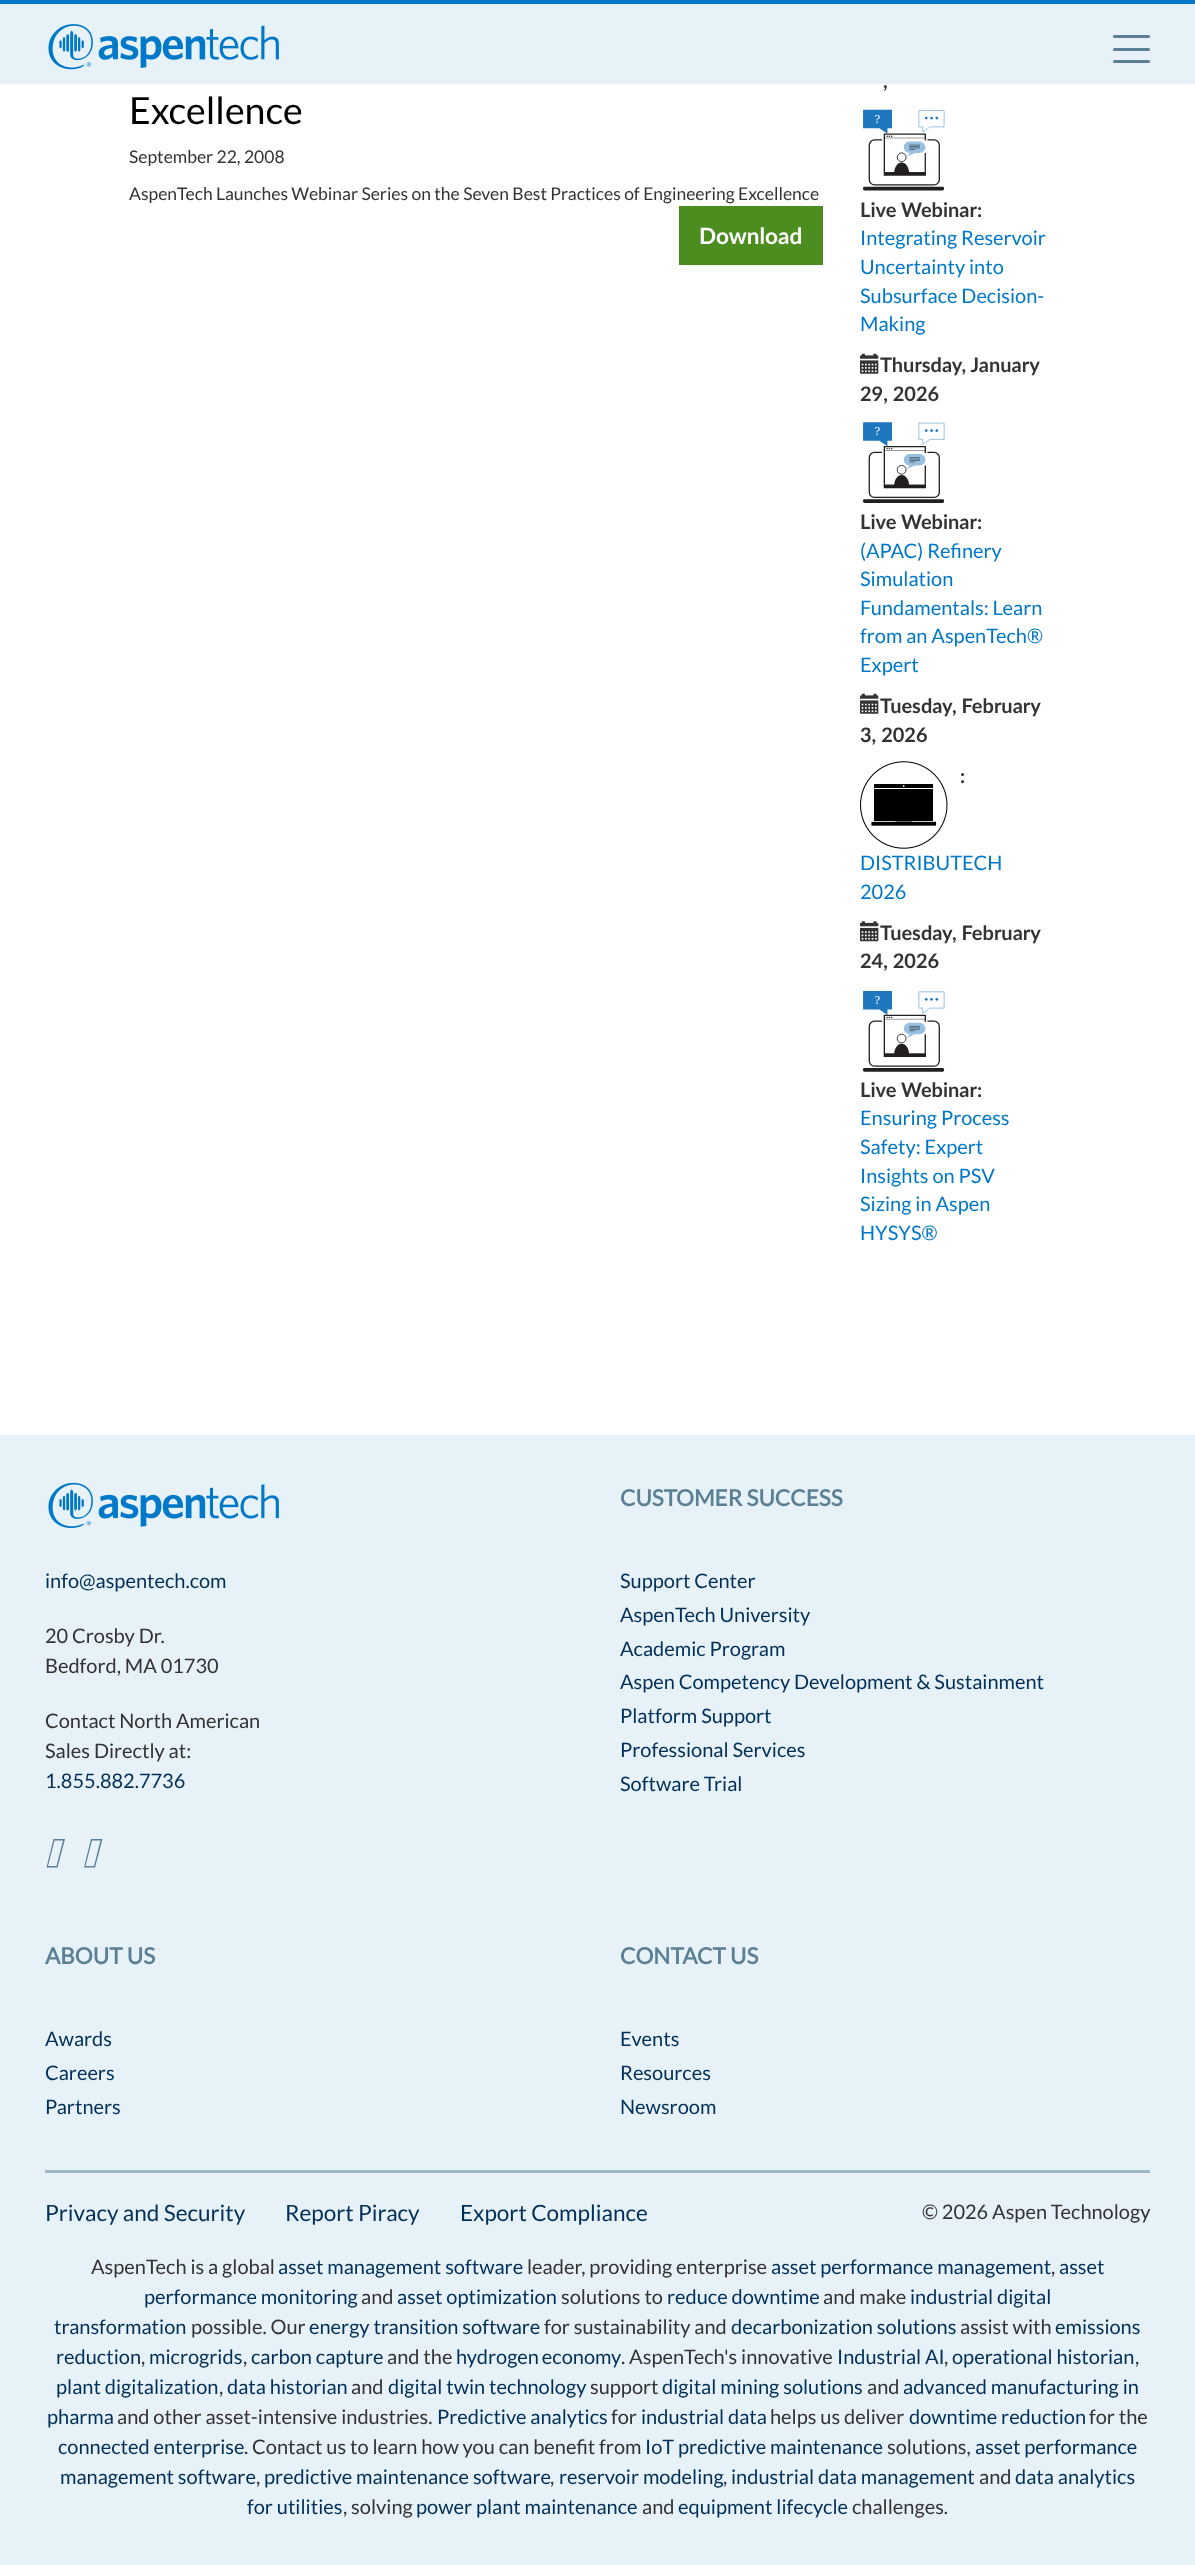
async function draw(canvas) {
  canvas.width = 1195;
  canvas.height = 2565;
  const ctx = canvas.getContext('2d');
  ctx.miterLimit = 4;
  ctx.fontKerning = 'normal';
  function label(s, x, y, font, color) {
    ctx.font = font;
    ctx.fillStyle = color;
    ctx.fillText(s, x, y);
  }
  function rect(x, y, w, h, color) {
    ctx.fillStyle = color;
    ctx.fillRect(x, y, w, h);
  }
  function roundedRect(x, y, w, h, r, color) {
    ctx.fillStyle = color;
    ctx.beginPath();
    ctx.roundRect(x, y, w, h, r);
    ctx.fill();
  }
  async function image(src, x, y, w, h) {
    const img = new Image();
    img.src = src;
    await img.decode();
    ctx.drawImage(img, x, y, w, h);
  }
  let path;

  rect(0, 0, 1195, 2565, '#fff');
  rect(0, 4, 1195, 80, '#e7f1f8');
  rect(0, 0, 1195, 4, '#0078c9');
  await image('assets/img1.png', 48, 24, 231, 46);
  roundedRect(1113, 60, 37, 3, 1.5, '#5b7f95');
  roundedRect(1113, 35, 37, 3, 1.5, '#5b7f95');
  roundedRect(1113, 48, 37, 3, 1.5, '#5b7f95');
  label('Excellence', 129, 124, '37.5px Lato', '#000');
  label('September 22, 2008', 129, 163, '17.5px Lato', '#333');
  label('AspenTech Launches Webinar Series on the Seven Best Practices of Engineering Excellence', 129, 200, '17.5px Lato', '#333');
  rect(679, 206, 144, 59, '#4c8d1f');
  label('Download', 699, 244, 'bold 22.5px Lato', '#fff');
  label(',', 883, 88, 'bold 20px Lato', '#333');
  await image('assets/img2.png', 863, 109, 82, 82);
  label('Live Webinar:', 860, 217, 'bold 20px Lato', '#333');
  label('Integrating Reservoir', 860, 245, '20px Lato', '#0078c9');
  label('Uncertainty into', 860, 274, '20px Lato', '#0078c9');
  label('Subsurface Decision-', 860, 303, '20px Lato', '#0078c9');
  label('Making', 860, 331, '20px Lato', '#0078c9');
  await image('assets/img3.png', 860, 353, 19, 21);
  label('Thursday, January', 880, 372, 'bold 20px Lato', '#333');
  label('29, 2026', 860, 401, 'bold 20px Lato', '#333');
  await image('assets/img4.png', 862, 422, 83, 81);
  label('Live Webinar:', 860, 529, 'bold 20px Lato', '#333');
  label('(APAC) Refinery', 860, 558, '20px Lato', '#0078c9');
  label('Simulation', 860, 586, '20px Lato', '#0078c9');
  label('Fundamentals: Learn', 860, 615, '20px Lato', '#0078c9');
  label('from an AspenTech®', 860, 643, '20px Lato', '#0078c9');
  label('Expert', 860, 672, '20px Lato', '#0078c9');
  await image('assets/img3.png', 860, 693, 19, 21);
  label('Tuesday, February', 880, 713, 'bold 20px Lato', '#333');
  label('3, 2026', 860, 742, 'bold 20px Lato', '#333');
  await image('assets/img5.png', 860, 761, 88, 88);
  label(':', 960, 783, 'bold 20px Lato', '#333');
  label('DISTRIBUTECH', 860, 870, '20px Lato', '#0078c9');
  label('2026', 860, 899, '20px Lato', '#0078c9');
  await image('assets/img6.png', 860, 921, 19, 21);
  label('Tuesday, February', 880, 940, 'bold 20px Lato', '#333');
  label('24, 2026', 860, 968, 'bold 20px Lato', '#333');
  await image('assets/img7.png', 862, 991, 83, 81);
  label('Live Webinar:', 860, 1097, 'bold 20px Lato', '#333');
  label('Ensuring Process', 860, 1125, '20px Lato', '#0078c9');
  label('Safety: Expert', 860, 1154, '20px Lato', '#0078c9');
  label('Insights on PSV', 860, 1183, '20px Lato', '#0078c9');
  label('Sizing in Aspen', 860, 1211, '20px Lato', '#0078c9');
  label('HYSYS®', 860, 1240, '20px Lato', '#0078c9');
  rect(0, 1435, 1195, 1130, '#e7f1f8');
  await image('assets/img8.png', 48, 1482, 231, 46);
  label('info@aspentech.com', 45, 1588, '20px Lato', '#003057');
  label('20 Crosby Dr.', 45, 1643, '20px Lato', '#333');
  label('Bedford, MA 01730', 45, 1673, '20px Lato', '#333');
  label('Contact North American', 45, 1728, '20px Lato', '#333');
  label('Sales Directly at:', 45, 1758, '20px Lato', '#333');
  label('1.855.882.7736', 45, 1788, '20px Lato', '#003057');
  ctx.fillStyle = '#5b7f95';
  path = new Path2D('M46.5 1867.5L53.5 1839H65L57.5 1867.5ZM48 1866H56.5L63 1840.5H54.5ZM84 1867.5L91 1839H102.5L95 1867.5ZM85.5 1866H94L100.5 1840.5H92Z');
  ctx.fill(path);
  label('CUSTOMER SUCCESS', 620, 1506, 'bold 22.5px "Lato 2"', '#5b7f95');
  label('Support Center', 620, 1588, '20px Lato', '#003057');
  label('AspenTech University', 620, 1622, '20px Lato', '#003057');
  label('Academic Program', 620, 1656, '20px Lato', '#003057');
  label('Aspen Competency Development & Sustainment', 620, 1689, '20px Lato', '#003057');
  label('Platform Support', 620, 1723, '20px Lato', '#003057');
  label('Professional Services', 620, 1757, '20px Lato', '#003057');
  label('Software Trial', 620, 1791, '20px Lato', '#003057');
  label('ABOUT US', 45, 1964, 'bold 22.5px "Lato 2"', '#5b7f95');
  label('Awards', 45, 2046, '20px Lato', '#003057');
  label('Careers', 45, 2080, '20px Lato', '#003057');
  label('Partners', 45, 2114, '20px Lato', '#003057');
  label('CONTACT US', 620, 1964, 'bold 22.5px "Lato 2"', '#5b7f95');
  label('Events', 620, 2046, '20px Lato', '#003057');
  label('Resources', 620, 2080, '20px Lato', '#003057');
  label('Newsroom', 620, 2114, '20px Lato', '#003057');
  rect(45, 2170, 1105, 3, '#a1b8c6');
  label('Privacy and Security', 45, 2221, '22.5px Lato', '#003057');
  label('Report Piracy', 285, 2221, '22.5px Lato', '#003057');
  label('Export Compliance', 460, 2221, '22.5px Lato', '#003057');
  label('© 2026 Aspen Technology', 922, 2219, '20px Lato', '#333');
  label('AspenTech is a global', 91, 2274, '20px Lato', '#333');
  label('asset management software', 278, 2274, '20px Lato', '#003057');
  label('leader, providing enterprise', 527, 2274, '20px Lato', '#333');
  label('asset performance management', 771, 2274, '20px Lato', '#003057');
  label(',', 1051, 2274, '20px Lato', '#333');
  label('asset', 1059, 2274, '20px Lato', '#003057');
  label('performance monitoring', 144, 2304, '20px Lato', '#003057');
  label('and', 361, 2304, '20px Lato', '#333');
  label('asset optimization', 397, 2304, '20px Lato', '#003057');
  label('solutions to', 561, 2304, '20px Lato', '#333');
  label('reduce downtime', 667, 2304, '20px Lato', '#003057');
  label('and make', 823, 2304, '20px Lato', '#333');
  label('industrial digital', 910, 2304, '20px Lato', '#003057');
  label('transformation', 54, 2334, '20px Lato', '#003057');
  label('possible. Our', 191, 2334, '20px Lato', '#333');
  label('energy transition software', 309, 2334, '20px Lato', '#003057');
  label('for sustainability and', 544, 2334, '20px Lato', '#333');
  label('decarbonization solutions', 731, 2334, '20px Lato', '#003057');
  label('assist with', 960, 2334, '20px Lato', '#333');
  label('emissions', 1055, 2334, '20px Lato', '#003057');
  label('reduction', 56, 2364, '20px Lato', '#003057');
  label(',', 141, 2364, '20px Lato', '#333');
  label('microgrids', 149, 2364, '20px Lato', '#003057');
  label(',', 243, 2364, '20px Lato', '#333');
  label('carbon capture', 251, 2364, '20px Lato', '#003057');
  label('and the', 387, 2364, '20px Lato', '#333');
  ctx.wordSpacing = '-1px';
  label('hydrogen economy', 456, 2364, '20px Lato', '#003057');
  ctx.wordSpacing = '0px';
  label('. AspenTech\'s innovative', 621, 2364, '20px Lato', '#333');
  label('Industrial AI', 837, 2364, '20px Lato', '#003057');
  label(',', 944, 2364, '20px Lato', '#333');
  label('operational historian', 952, 2364, '20px Lato', '#003057');
  label(',', 1135, 2364, '20px Lato', '#333');
  label('plant digitalization', 56, 2394, '20px Lato', '#003057');
  label(',', 219, 2394, '20px Lato', '#333');
  label('data historian', 227, 2394, '20px Lato', '#003057');
  label('and', 351, 2394, '20px Lato', '#333');
  label('digital twin technology', 388, 2394, '20px Lato', '#003057');
  label('support', 590, 2394, '20px Lato', '#333');
  label('digital mining solutions', 662, 2394, '20px Lato', '#003057');
  label('and', 867, 2394, '20px Lato', '#333');
  label('advanced manufacturing in', 903, 2394, '20px Lato', '#003057');
  label('pharma', 47, 2424, '20px Lato', '#003057');
  label('and other asset-intensive industries.', 117, 2424, '20px Lato', '#333');
  label('Predictive analytics', 437, 2424, '20px Lato', '#003057');
  label('for', 611, 2424, '20px Lato', '#333');
  label('industrial data', 641, 2424, '20px Lato', '#003057');
  label('helps us deliver', 770, 2424, '20px Lato', '#333');
  label('downtime reduction', 909, 2424, '20px Lato', '#003057');
  label('for the', 1089, 2424, '20px Lato', '#333');
  label('connected enterprise', 58, 2454, '20px Lato', '#003057');
  label('. Contact us to learn how you can benefit from', 244, 2454, '20px Lato', '#333');
  label('IoT predictive maintenance', 645, 2454, '20px Lato', '#003057');
  label('solutions,', 887, 2454, '20px Lato', '#333');
  label('asset performance', 975, 2454, '20px Lato', '#003057');
  label('management software', 60, 2484, '20px Lato', '#003057');
  label(',', 256, 2484, '20px Lato', '#333');
  label('predictive maintenance software', 264, 2484, '20px Lato', '#003057');
  label(',', 550, 2484, '20px Lato', '#333');
  label('reservoir modeling', 559, 2484, '20px Lato', '#003057');
  label(',', 723, 2484, '20px Lato', '#333');
  label('industrial data management', 731, 2484, '20px Lato', '#003057');
  label('and', 979, 2484, '20px Lato', '#333');
  label('data analytics', 1015, 2484, '20px Lato', '#003057');
  label('for utilities', 247, 2514, '20px Lato', '#003057');
  label(', solving', 343, 2514, '20px Lato', '#333');
  label('power plant maintenance', 416, 2514, '20px Lato', '#003057');
  label('and', 642, 2514, '20px Lato', '#333');
  label('equipment lifecycle', 678, 2514, '20px Lato', '#003057');
  label('challenges.', 852, 2514, '20px Lato', '#333');
}

draw(document.querySelector('canvas'));
